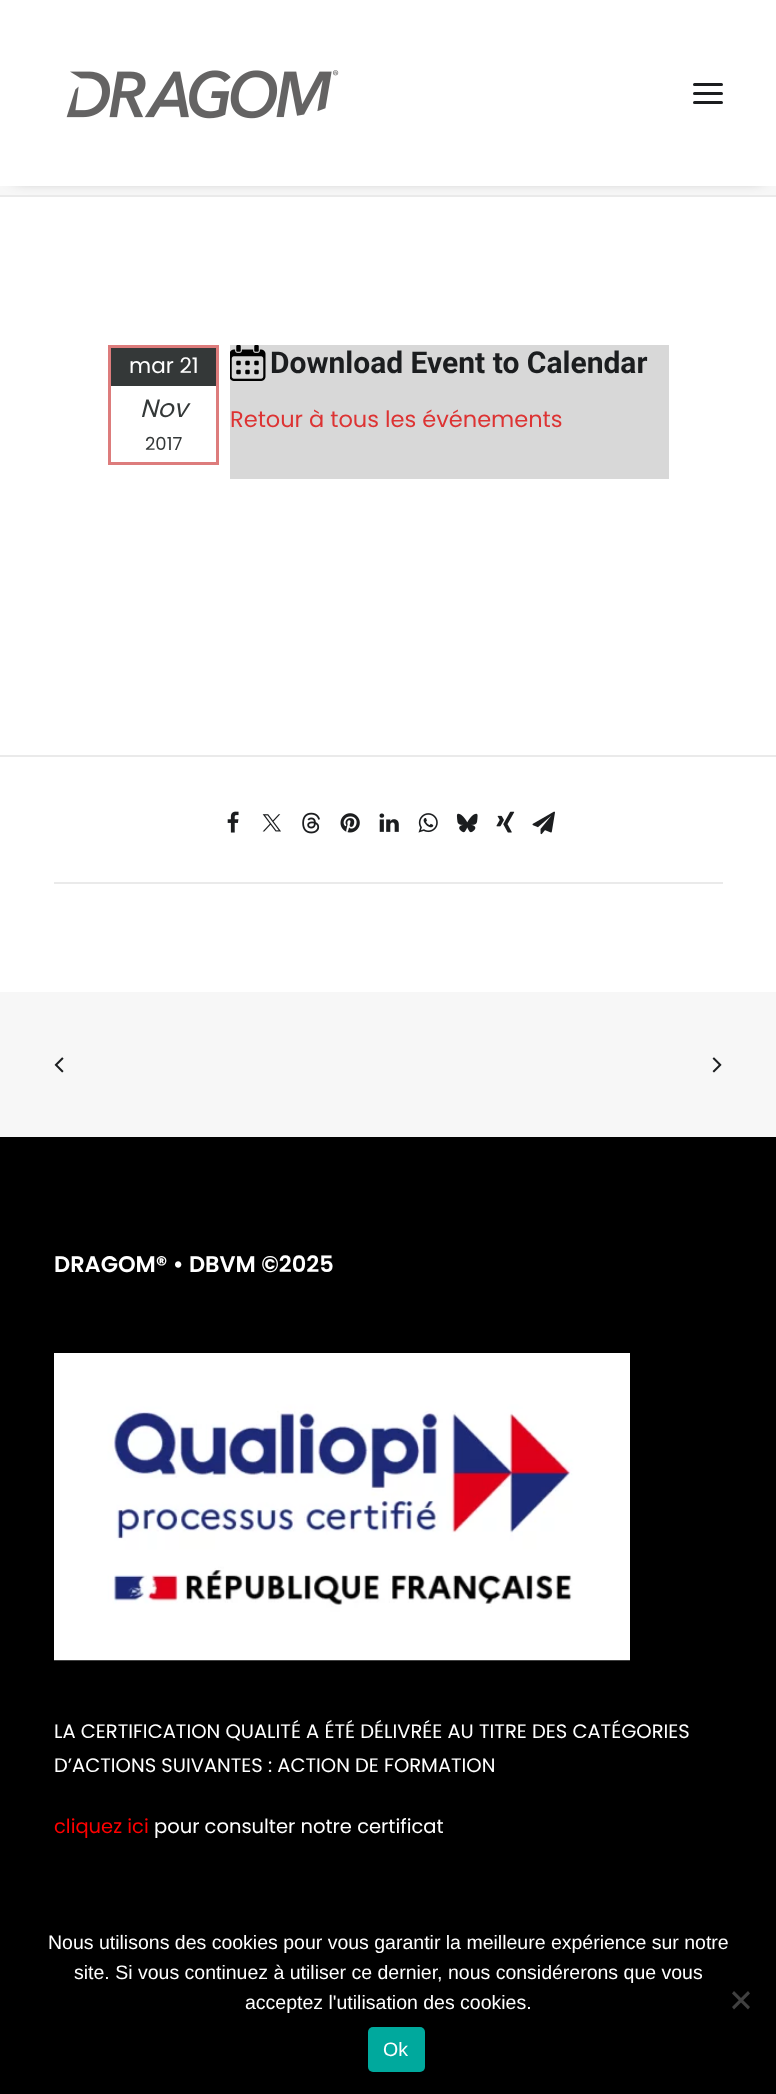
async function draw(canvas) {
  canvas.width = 776;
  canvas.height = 2094;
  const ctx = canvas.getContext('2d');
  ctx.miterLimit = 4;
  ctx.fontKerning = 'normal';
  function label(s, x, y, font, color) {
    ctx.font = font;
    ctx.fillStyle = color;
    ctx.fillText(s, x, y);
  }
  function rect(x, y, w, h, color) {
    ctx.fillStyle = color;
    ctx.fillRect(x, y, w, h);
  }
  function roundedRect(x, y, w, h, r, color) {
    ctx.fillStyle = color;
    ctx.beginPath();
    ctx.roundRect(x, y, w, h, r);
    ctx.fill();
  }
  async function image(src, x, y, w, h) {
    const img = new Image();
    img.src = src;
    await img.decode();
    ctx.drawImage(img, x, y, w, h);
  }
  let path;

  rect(0, 0, 776, 2094, '#f7f7f7');
  rect(0, 195, 776, 2, '#eaeaea');
  rect(0, 197, 776, 795, '#fff');
  ctx.fillStyle = '#00000099';
  ctx.filter = 'blur(7.5px)';
  ctx.beginPath();
  ctx.rect(15, 21, 747, 156);
  ctx.fill();
  ctx.filter = 'none';
  rect(0, 0, 776, 186, '#fff');
  await image('assets/img1.png', 66, 70, 273, 49);
  roundedRect(693, 92, 30, 3, 1.5, '#1b1d1f');
  roundedRect(693, 83, 30, 3, 1.5, '#1b1d1f');
  roundedRect(693, 101, 30, 3, 1.5, '#1b1d1f');
  rect(111, 348, 105, 38, '#343838');
  rect(108, 345, 111, 3, '#dd7c7c');
  rect(216, 345, 3, 120, '#dd7c7c');
  rect(108, 345, 3, 41, '#dd7c7c');
  label('mar 21', 129, 373, '21.5px Poppins', '#fff');
  rect(108, 462, 111, 3, '#dd7c7c');
  rect(108, 386, 3, 79, '#dd7c7c');
  label('Nov', 140, 417, 'italic 25px Poppins', '#343838');
  label('2017', 145, 450, '18px Poppins', '#343838');
  rect(230, 345, 439, 134, '#d8d8d8');
  await image('assets/img2.png', 230, 345, 36, 36);
  label('Download Event to Calendar', 270, 373, 'bold 30px Roboto', '#1b1d1f');
  label('Retour à tous les événements', 230, 427, '22.5px Poppins', '#d33');
  rect(0, 755, 776, 2, '#eaeaea');
  rect(54, 882, 669, 2, '#eaeaea');
  await image('assets/img3.png', 227, 811, 12, 22);
  await image('assets/img4.png', 262, 814, 19, 18);
  await image('assets/img5.png', 302, 812, 18, 22);
  await image('assets/img6.png', 340, 813, 20, 20);
  await image('assets/img7.png', 379, 813, 20, 19);
  await image('assets/img8.png', 418, 813, 20, 20);
  await image('assets/img9.png', 456, 813, 22, 20);
  await image('assets/img10.png', 496, 811, 19, 22);
  await image('assets/img11.png', 532, 811, 23, 24);
  await image('assets/img12.png', 54, 1057, 10, 16);
  await image('assets/img13.png', 712, 1057, 10, 16);
  rect(0, 1137, 776, 957, '#000');
  label('DRAGOM® • DBVM ©2025', 54, 1272, '600 22.5px Poppins', '#fff');
  await image('assets/img14.png', 54, 1353, 576, 308);
  label('LA CERTIFICATION QUALITÉ A ÉTÉ DÉLIVRÉE AU TITRE DES CATÉGORIES', 54, 1738, '19.5px Poppins', '#fff');
  label('D’ACTIONS SUIVANTES : ACTION DE FORMATION', 54, 1772, '19.5px Poppins', '#fff');
  label('cliquez ici', 54, 1833, '19.5px Poppins', '#f00');
  label('pour consulter notre certificat', 154, 1833, '19.5px Poppins', '#fff');
  label('Nous utilisons des cookies pour vous garantir la meilleure expérience sur notre', 48, 1949, '19.5px Liberation Sans', '#fff');
  label('site. Si vous continuez à utiliser ce dernier, nous considérerons que vous', 74, 1979, '19.5px Liberation Sans', '#fff');
  label('acceptez l\'utilisation des cookies.', 245, 2009, '19.5px Liberation Sans', '#fff');
  ctx.fillStyle = '#404040';
  path = new Path2D('M748 1991L750 1993.5L734 2009.5L732 2007Z');
  ctx.fill(path);
  path = new Path2D('M732 1993.5L734 1991L750 2007L748 2009.5Z');
  ctx.fill(path);
  roundedRect(368, 2027, 57, 45, 5, '#00a99d');
  label('Ok', 383, 2056, '19.5px Liberation Sans', '#fff');
}

draw(document.querySelector('canvas'));
